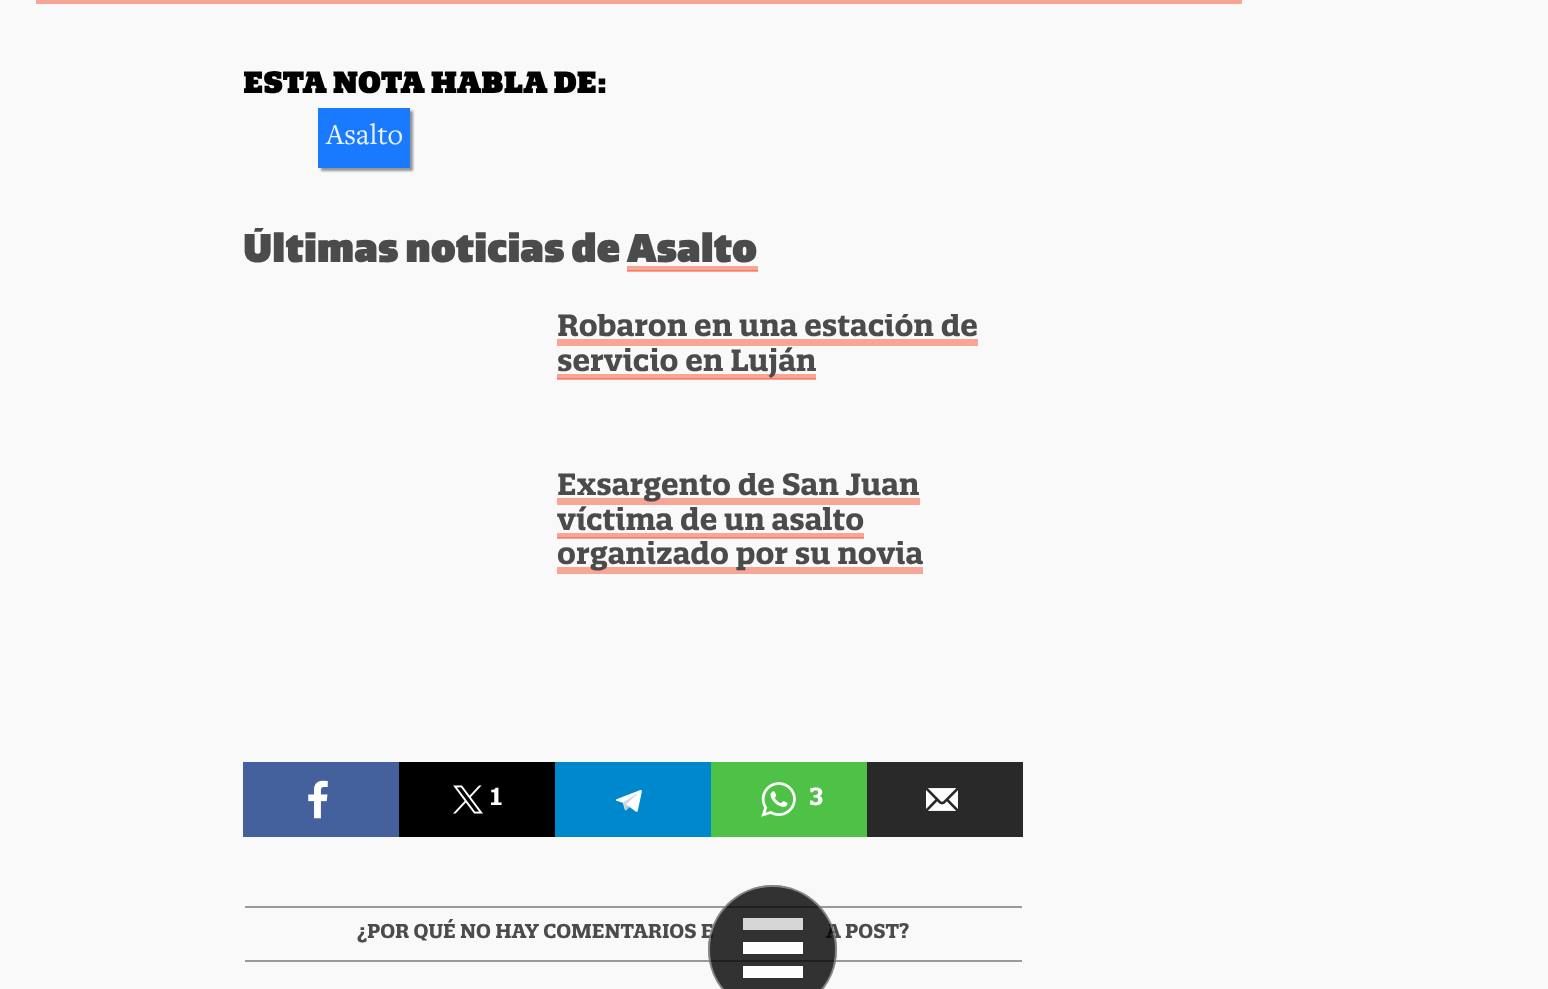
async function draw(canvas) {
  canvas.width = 1548;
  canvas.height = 989;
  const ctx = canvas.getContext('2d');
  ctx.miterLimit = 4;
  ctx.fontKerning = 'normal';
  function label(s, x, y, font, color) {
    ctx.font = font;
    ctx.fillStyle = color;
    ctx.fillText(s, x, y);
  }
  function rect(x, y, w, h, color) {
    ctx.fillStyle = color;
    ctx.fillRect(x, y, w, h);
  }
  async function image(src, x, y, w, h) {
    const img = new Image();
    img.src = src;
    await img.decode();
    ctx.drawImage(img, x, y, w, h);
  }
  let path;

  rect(0, 0, 1548, 989, '#f9f9f9');
  rect(557, 538, 307, 1, '#f8a595');
  rect(557, 379, 259, 1, '#f8a595');
  rect(627, 271, 131, 1, '#f8a595');
  rect(36, 0, 1206, 4, '#f8a595');
  label('ESTA NOTA HABLA DE:', 243, 93, '900 30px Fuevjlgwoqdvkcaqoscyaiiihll', '#000');
  ctx.save();
  path = new Path2D('M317 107H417V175H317ZM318 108H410V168H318Z');
  ctx.clip(path, 'evenodd');
  ctx.fillStyle = '#00000066';
  ctx.filter = 'blur(1px)';
  ctx.beginPath();
  ctx.rect(321, 111, 92, 60);
  ctx.fill();
  ctx.filter = 'none';
  ctx.restore();
  rect(318, 108, 92, 60, '#006bffe6');
  label('Asalto', 326, 144, '30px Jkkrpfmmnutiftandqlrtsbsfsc', '#e8f2ff');
  ctx.save();
  ctx.beginPath();
  ctx.rect(243, 228, 780, 47);
  ctx.clip();
  label('Últimas noticias de', 243, 262, '900 39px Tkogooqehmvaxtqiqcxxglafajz', '#4b4b4b');
  ctx.restore();
  label('Asalto', 627, 262, '900 39px Tkogooqehmvaxtqiqcxxglafajz', '#4b4b4b');
  rect(627, 266, 131, 4, '#f8a595');
  rect(627, 270, 131, 1, '#f87b63');
  ctx.save();
  ctx.beginPath();
  ctx.rect(557, 314, 459, 99);
  ctx.clip();
  label('Robaron en una estación de', 557, 336, 'bold 30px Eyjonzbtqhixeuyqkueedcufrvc', '#4b4b4b');
  ctx.restore();
  rect(557, 339, 421, 7, '#f8a595');
  rect(557, 374, 259, 4, '#f8a595');
  label('servicio en Luján', 557, 371, 'bold 30px Eyjonzbtqhixeuyqkueedcufrvc', '#4b4b4b');
  rect(557, 378, 259, 1, '#f87b63');
  rect(557, 498, 363, 7, '#f8a595');
  ctx.save();
  ctx.beginPath();
  ctx.rect(557, 473, 459, 102);
  ctx.clip();
  label('Exsargento de San Juan', 557, 495, 'bold 30px Eyjonzbtqhixeuyqkueedcufrvc', '#4b4b4b');
  label('víctima de un asalto', 557, 530, 'bold 30px Eyjonzbtqhixeuyqkueedcufrvc', '#4b4b4b');
  ctx.restore();
  rect(557, 533, 307, 4, '#f8a595');
  rect(557, 567, 366, 7, '#f8a595');
  label('organizado por su novia', 557, 564, 'bold 30px Eyjonzbtqhixeuyqkueedcufrvc', '#4b4b4b');
  rect(557, 537, 307, 1, '#f87b63');
  rect(243, 762, 156, 75, '#44619d');
  await image('assets/img1.png', 308, 780, 20, 39);
  rect(399, 762, 156, 75, '#000');
  await image('assets/img2.png', 453, 785, 30, 29);
  label('1', 490, 805, 'bold 24px Eyjonzbtqhixeuyqkueedcufrvc', '#fff');
  rect(555, 762, 156, 75, '#08c');
  await image('assets/img3.png', 615, 790, 27, 22);
  rect(711, 762, 156, 75, '#4dc247');
  await image('assets/img4.png', 761, 782, 35, 35);
  label('3', 809, 805, 'bold 24px Eyjonzbtqhixeuyqkueedcufrvc', '#fff');
  rect(867, 762, 156, 75, '#292929');
  await image('assets/img5.png', 926, 788, 32, 23);
  rect(245, 906, 777, 2, '#999');
  rect(245, 960, 777, 2, '#999');
  label('¿POR QUÉ NO HAY COMENTARIOS E', 357, 938, 'bold 19.5px Eyjonzbtqhixeuyqkueedcufrvc', '#4b4b4b');
  label('A POST?', 826, 938, 'bold 19.5px Eyjonzbtqhixeuyqkueedcufrvc', '#4b4b4b');
  ctx.fillStyle = '#000000cc';
  ctx.beginPath();
  ctx.arc(772.5, 949.5, 64.5, 0, 2 * Math.PI);
  ctx.fill();
  ctx.beginPath();
  ctx.arc(772.5, 949.5, 63.5, 0, 2 * Math.PI);
  ctx.strokeStyle = '#ffffff66';
  ctx.lineWidth = 2;
  ctx.stroke();
  rect(743, 918, 60, 12, '#ffffffcc');
  rect(743, 942, 60, 12, '#fefefe');
  rect(743, 966, 60, 12, '#fefefe');
}

draw(document.querySelector('canvas'));
